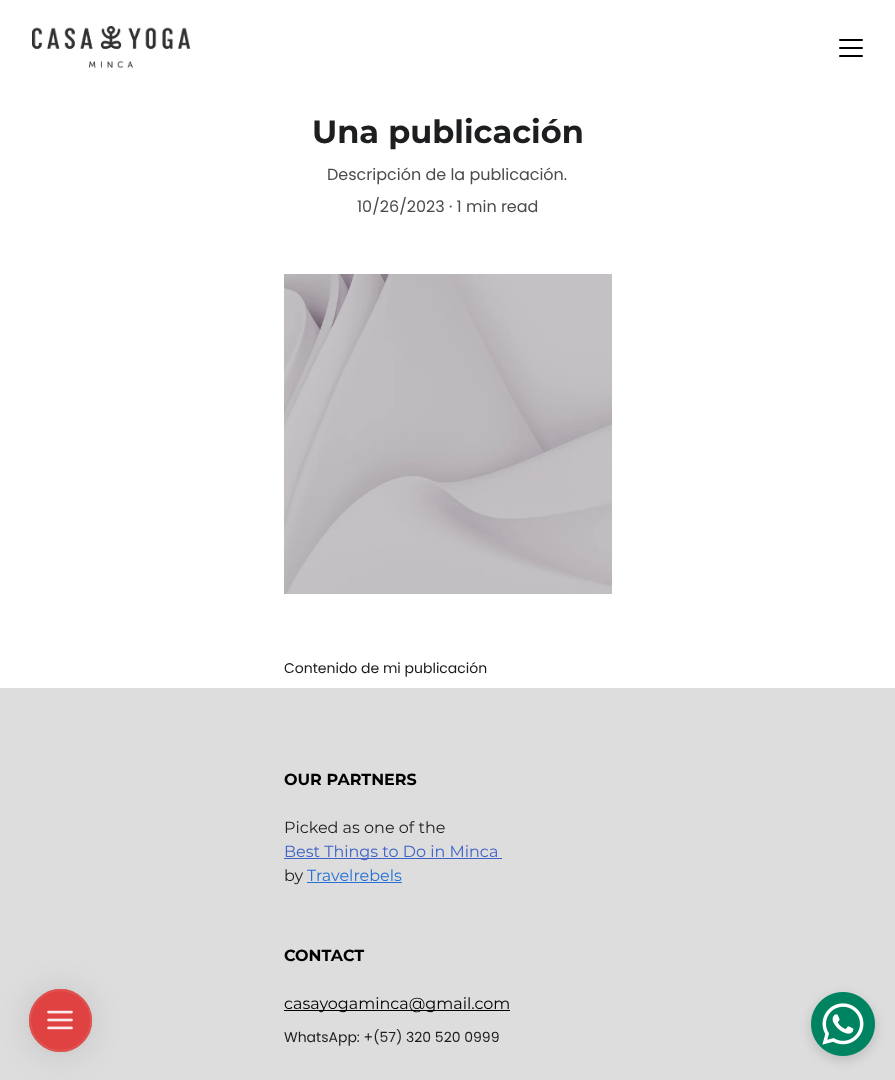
async function draw(canvas) {
  canvas.width = 895;
  canvas.height = 1080;
  const ctx = canvas.getContext('2d');
  ctx.miterLimit = 4;
  ctx.fontKerning = 'normal';
  function label(s, x, y, font, color) {
    ctx.font = font;
    ctx.fillStyle = color;
    ctx.fillText(s, x, y);
  }
  function rect(x, y, w, h, color) {
    ctx.fillStyle = color;
    ctx.fillRect(x, y, w, h);
  }
  function roundedRect(x, y, w, h, r, color) {
    ctx.fillStyle = color;
    ctx.beginPath();
    ctx.roundRect(x, y, w, h, r);
    ctx.fill();
  }
  async function image(src, x, y, w, h) {
    const img = new Image();
    img.src = src;
    await img.decode();
    ctx.drawImage(img, x, y, w, h);
  }

  rect(0, 0, 895, 1080, '#fff');
  rect(0, 688, 895, 392, '#ddd');
  ctx.fillStyle = '#16161626';
  ctx.filter = 'blur(16px)';
  ctx.beginPath();
  ctx.roundRect(30, 992, 60, 60, 30);
  ctx.fill();
  ctx.filter = 'none';
  ctx.fillStyle = '#e04242';
  ctx.beginPath();
  ctx.arc(60.5, 1020.5, 30.5, 0, 2 * Math.PI);
  ctx.fill();
  ctx.strokeStyle = '#df5252';
  ctx.lineWidth = 2;
  ctx.stroke();
  await image('assets/img1.png', 47, 1010, 26, 20);
  ctx.beginPath();
  ctx.arc(60.5, 1020.5, 30.5, 0, 2 * Math.PI);
  ctx.stroke();
  await image('assets/img2.png', 32, 26, 158, 43);
  roundedRect(839, 39, 24, 2, 1, '#000');
  roundedRect(839, 47, 24, 2, 1, '#000');
  roundedRect(839, 55, 24, 2, 1, '#000');
  label('Una publicación', 312, 143, '100 32px Montserrat', '#1d1e20');
  label('Descripción de la publicación.', 327, 180, '16px Poppins', '#4a4b4d');
  label('10/26/2023 · 1 min read', 357, 212, '16px Poppins', '#4a4b4d');
  await image('assets/img3.png', 284, 274, 328, 320);
  label('Contenido de mi publicación', 284, 673, '14px Poppins', '#1a1a1a');
  label('OUR PARTNERS', 284, 785, '100 16px Montserrat', '#000');
  label('Picked as one of the', 284, 833, '100 16px "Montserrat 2"', '#1d1e20');
  rect(284, 858, 218, 1, '#3e62c7');
  label('Best Things to Do in Minca', 284, 857, '100 16px "Montserrat 2"', '#3e62c7');
  label('by', 284, 881, '100 16px "Montserrat 2"', '#1d1e20');
  label('Travelrebels', 307, 881, '100 16px "Montserrat 2"', '#2571d6');
  rect(307, 882, 95, 1, '#2571d6');
  label('CONTACT', 284, 961, '100 16px Montserrat', '#000');
  rect(284, 1010, 226, 1, '#000');
  label('casayogaminca@gmail.com', 284, 1009, '100 16px "Montserrat 2"', '#000');
  label('WhatsApp: +(57) 320 520 0999', 284, 1042, '14px Poppins', '#1d1e20');
  ctx.fillStyle = '#00000026';
  ctx.filter = 'blur(6px)';
  ctx.beginPath();
  ctx.roundRect(811, 996, 64, 64, 32);
  ctx.fill();
  ctx.filter = 'none';
  await image('assets/img4.png', 811, 992, 64, 64);
}

draw(document.querySelector('canvas'));
